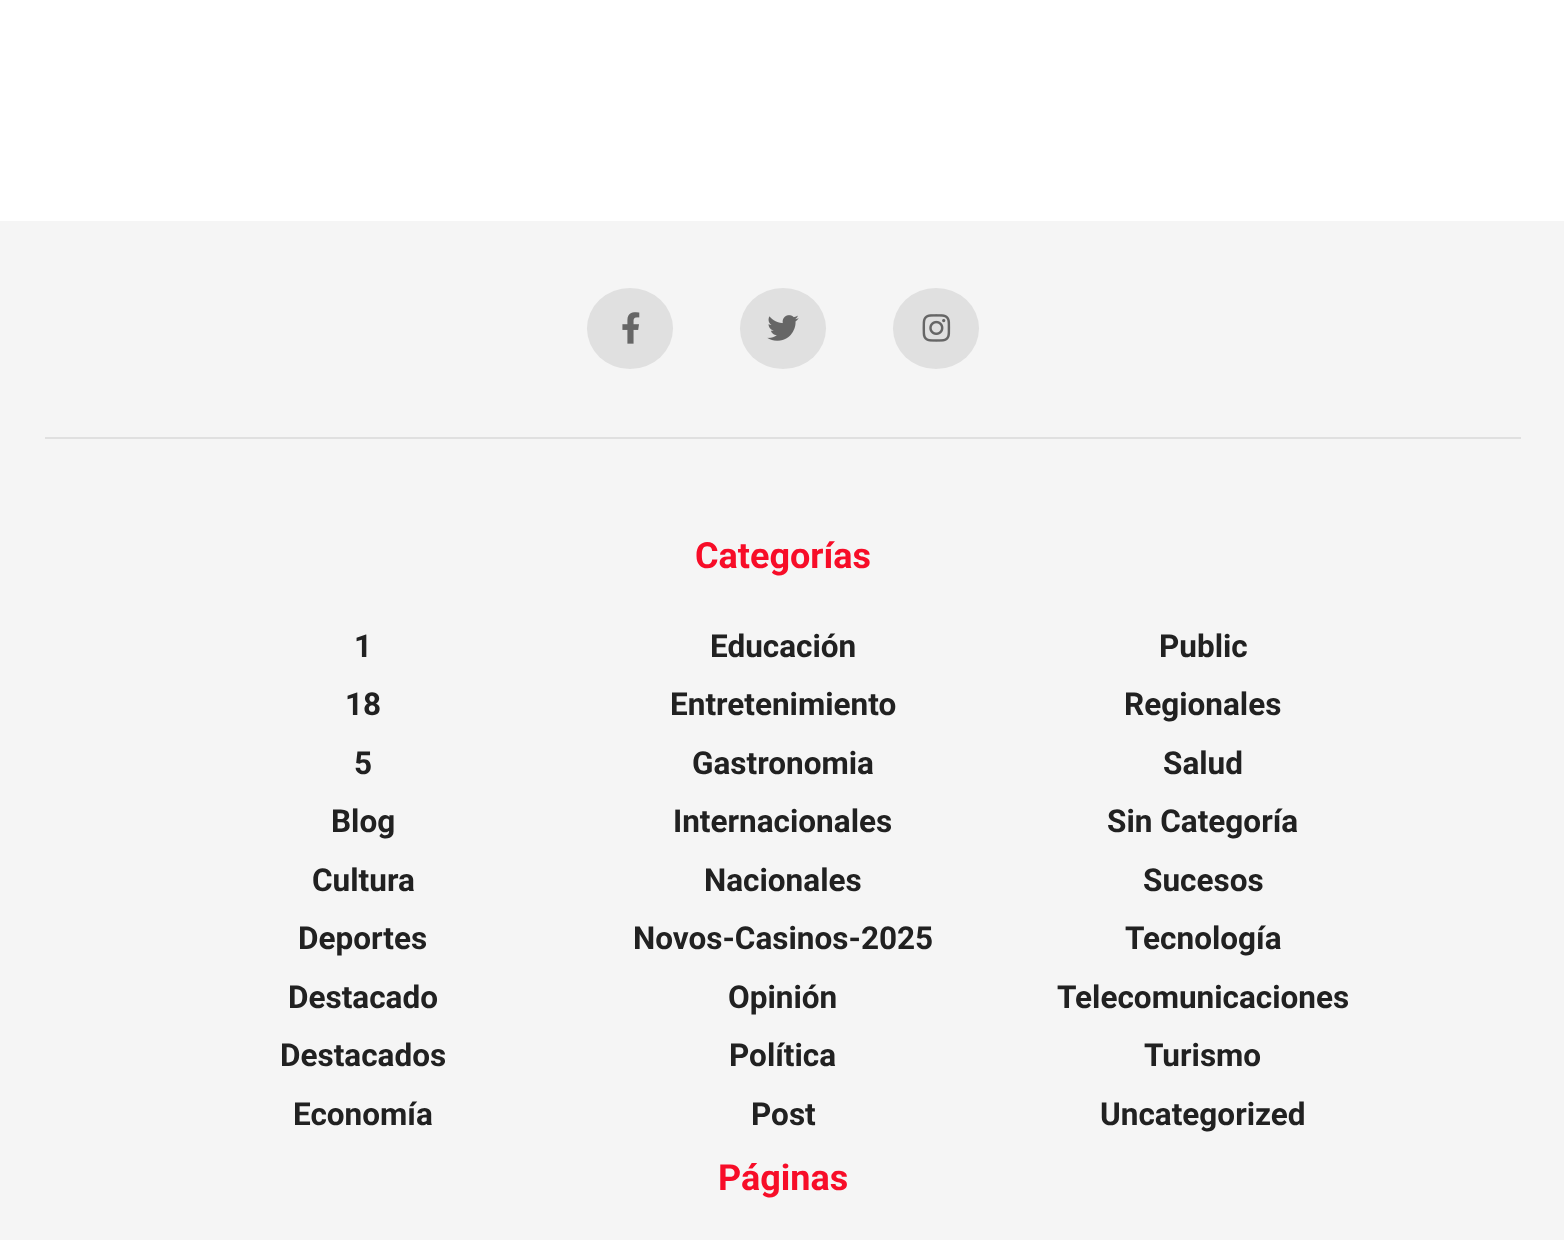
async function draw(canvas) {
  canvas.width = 1564;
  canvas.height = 1240;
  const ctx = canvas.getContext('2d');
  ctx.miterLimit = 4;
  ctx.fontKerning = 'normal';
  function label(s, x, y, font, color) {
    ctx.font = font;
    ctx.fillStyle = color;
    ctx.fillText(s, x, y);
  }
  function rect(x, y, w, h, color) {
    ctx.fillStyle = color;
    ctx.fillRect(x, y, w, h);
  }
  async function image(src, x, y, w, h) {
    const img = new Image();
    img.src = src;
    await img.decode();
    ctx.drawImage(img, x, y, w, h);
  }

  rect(0, 0, 1564, 1240, '#fff');
  rect(0, 221, 1564, 1019, '#f5f5f5');
  rect(45, 437, 1476, 2, '#e0e0e0');
  ctx.beginPath();
  ctx.ellipse(630, 328.5, 43, 40.5, 0, 0, 2 * Math.PI);
  ctx.fill();
  await image('assets/img1.png', 622, 312, 18, 32);
  ctx.beginPath();
  ctx.ellipse(783, 328.5, 43, 40.5, 0, 0, 2 * Math.PI);
  ctx.fill();
  await image('assets/img2.png', 767, 315, 32, 26);
  ctx.beginPath();
  ctx.ellipse(936, 328.5, 43, 40.5, 0, 0, 2 * Math.PI);
  ctx.fill();
  await image('assets/img3.png', 922, 314, 29, 28);
  label('Categorías', 695, 568, 'bold 36px Roboto', '#f70d28');
  label('1', 354, 657, 'bold 31.5px Roboto', '#212121');
  label('Educación', 710, 657, 'bold 31.5px Roboto', '#212121');
  label('Public', 1159, 657, 'bold 31.5px Roboto', '#212121');
  label('18', 345, 715, 'bold 31.5px Roboto', '#212121');
  label('Entretenimiento', 670, 715, 'bold 31.5px Roboto', '#212121');
  label('Regionales', 1124, 715, 'bold 31.5px Roboto', '#212121');
  label('5', 354, 774, 'bold 31.5px Roboto', '#212121');
  label('Gastronomia', 692, 774, 'bold 31.5px Roboto', '#212121');
  label('Salud', 1163, 774, 'bold 31.5px Roboto', '#212121');
  label('Blog', 331, 832, 'bold 31.5px Roboto', '#212121');
  label('Internacionales', 673, 832, 'bold 31.5px Roboto', '#212121');
  label('Sin Categoría', 1107, 832, 'bold 31.5px Roboto', '#212121');
  label('Cultura', 312, 891, 'bold 31.5px Roboto', '#212121');
  label('Nacionales', 704, 891, 'bold 31.5px Roboto', '#212121');
  label('Sucesos', 1143, 891, 'bold 31.5px Roboto', '#212121');
  label('Deportes', 298, 949, 'bold 31.5px Roboto', '#212121');
  label('Novos-Casinos-2025', 633, 949, 'bold 31.5px Roboto', '#212121');
  label('Tecnología', 1125, 949, 'bold 31.5px Roboto', '#212121');
  label('Destacado', 288, 1008, 'bold 31.5px Roboto', '#212121');
  label('Opinión', 728, 1008, 'bold 31.5px Roboto', '#212121');
  label('Telecomunicaciones', 1057, 1008, 'bold 31.5px Roboto', '#212121');
  label('Destacados', 280, 1066, 'bold 31.5px Roboto', '#212121');
  label('Política', 729, 1066, 'bold 31.5px Roboto', '#212121');
  label('Turismo', 1144, 1066, 'bold 31.5px Roboto', '#212121');
  label('Economía', 293, 1125, 'bold 31.5px Roboto', '#212121');
  label('Post', 751, 1125, 'bold 31.5px Roboto', '#212121');
  label('Uncategorized', 1100, 1125, 'bold 31.5px Roboto', '#212121');
  label('Páginas', 718, 1190, 'bold 36px Roboto', '#f70d28');
}

draw(document.querySelector('canvas'));
